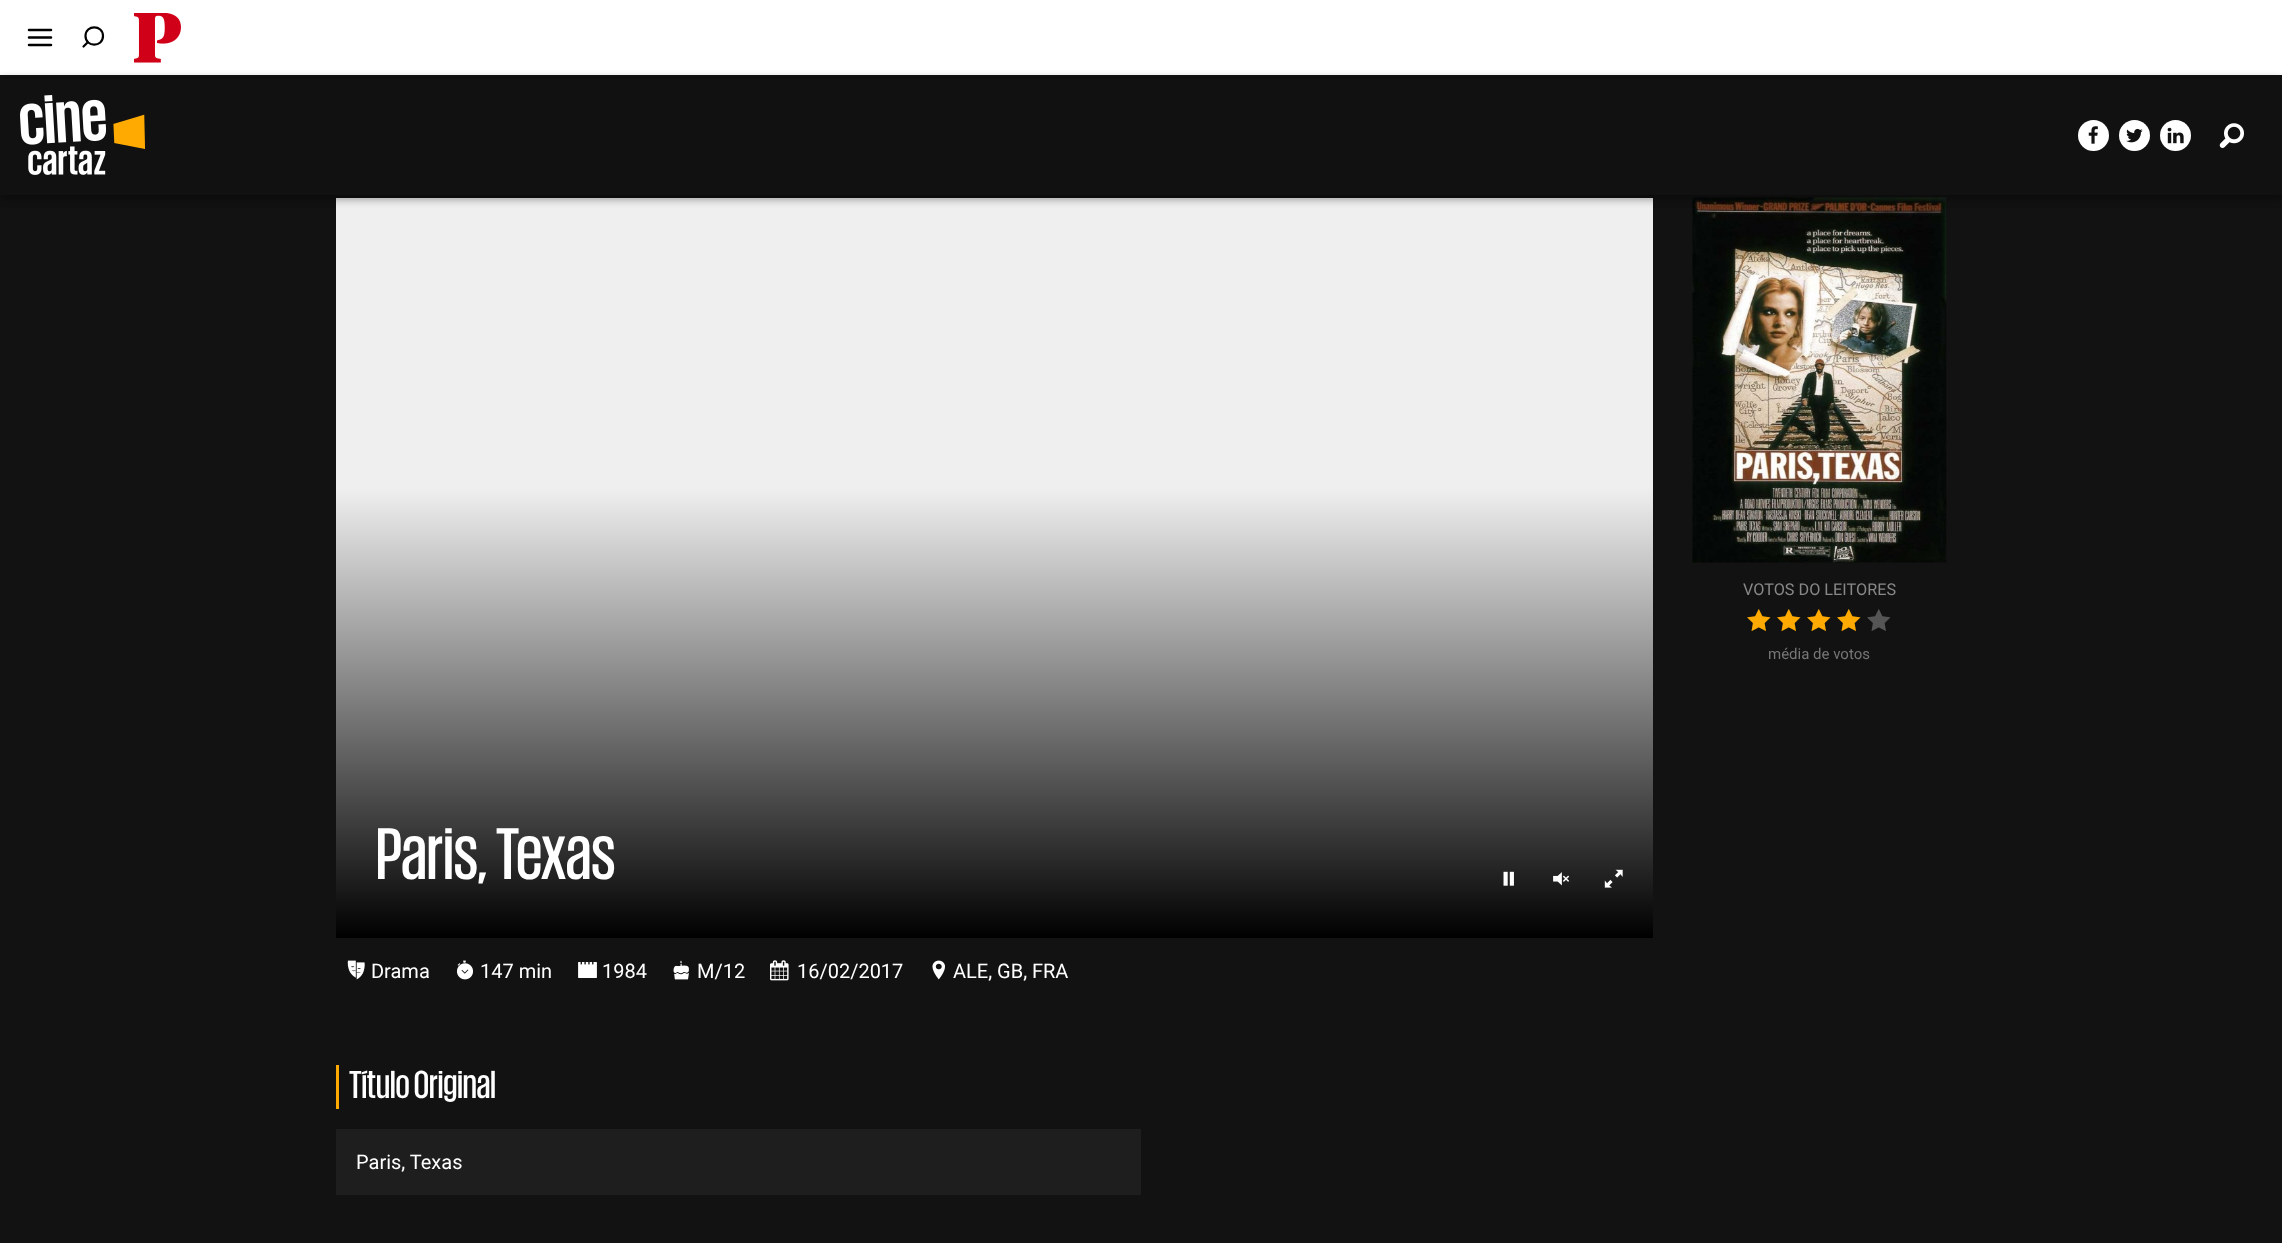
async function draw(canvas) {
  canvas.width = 2282;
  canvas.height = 1243;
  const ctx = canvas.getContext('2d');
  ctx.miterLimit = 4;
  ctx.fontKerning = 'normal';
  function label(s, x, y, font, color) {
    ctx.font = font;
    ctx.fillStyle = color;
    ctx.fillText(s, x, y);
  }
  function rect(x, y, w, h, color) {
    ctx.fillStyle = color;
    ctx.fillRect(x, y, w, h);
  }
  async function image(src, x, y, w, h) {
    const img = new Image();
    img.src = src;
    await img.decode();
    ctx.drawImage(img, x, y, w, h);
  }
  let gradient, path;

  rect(0, 0, 2282, 1243, '#121212');
  rect(0, 0, 2282, 75, '#fff');
  path = new Path2D('M29 37.5H51M29 30H51M29 45H51');
  ctx.strokeStyle = '#000';
  ctx.lineWidth = 2.5;
  ctx.lineCap = 'round';
  ctx.lineJoin = 'round';
  ctx.stroke(path);
  path = new Path2D('M103 36C103 47.5 85.5 47.5 85.5 36C85.5 24.5 103 24.5 103 36ZM83.5 46.5L88 42');
  ctx.lineWidth = 2.2;
  ctx.stroke(path);
  await image('assets/img1.png', 134, 13, 47, 50);
  await image('assets/img7.png', 1692, 197, 255, 366);
  rect(336, 198, 1317, 288, '#efefef');
  ctx.fillStyle = '#0000003b';
  ctx.filter = 'blur(4px)';
  ctx.beginPath();
  ctx.rect(0, 79, 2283, 120);
  ctx.fill();
  ctx.filter = 'none';
  ctx.fillStyle = '#00000029';
  ctx.filter = 'blur(4px)';
  ctx.beginPath();
  ctx.rect(0, 79, 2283, 120);
  ctx.fill();
  ctx.filter = 'none';
  rect(0, 79, 2282, 116, '#111');
  await image('assets/img2.png', 20, 95, 125, 80);
  ctx.fillStyle = '#fff';
  ctx.beginPath();
  ctx.arc(2093.5, 135.5, 15.5, 0, 2 * Math.PI);
  ctx.fill();
  await image('assets/img3.png', 2088, 126, 10, 18);
  ctx.beginPath();
  ctx.arc(2134.5, 135.5, 15.5, 0, 2 * Math.PI);
  ctx.fill();
  await image('assets/img4.png', 2126, 128, 17, 15);
  ctx.beginPath();
  ctx.arc(2175.5, 135.5, 15.5, 0, 2 * Math.PI);
  ctx.fill();
  await image('assets/img5.png', 2167, 127, 17, 17);
  await image('assets/img6.png', 2219, 123, 25, 25);
  label('VOTOS DO LEITORES', 1743, 595, '16.25px Roboto', '#888');
  await image('assets/img8.png', 1747, 609, 24, 23);
  await image('assets/img8.png', 1777, 609, 24, 23);
  await image('assets/img8.png', 1807, 609, 24, 23);
  await image('assets/img8.png', 1837, 609, 24, 23);
  await image('assets/img9.png', 1867, 609, 24, 22);
  label('média de votos', 1768, 659, '15px Roboto', '#777');
  gradient = ctx.createLinearGradient(994, 486, 994, 938);
  gradient.addColorStop(0, '#f0f0f0');
  gradient.addColorStop(1, '#000');
  ctx.fillStyle = gradient;
  ctx.fillRect(336, 486, 1317, 452);
  label('Paris, Texas', 376, 879, '500 75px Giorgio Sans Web', '#fff');
  await image('assets/img10.png', 1503, 871, 11, 15);
  await image('assets/img11.png', 1553, 872, 17, 14);
  await image('assets/img12.png', 1604, 869, 19, 19);
  await image('assets/img13.png', 347, 960, 18, 20);
  label('Drama', 371, 978, '20px Roboto', '#fff');
  await image('assets/img14.png', 456, 960, 18, 20);
  label('147 min', 480, 978, '20px Roboto', '#fff');
  await image('assets/img15.png', 578, 962, 19, 16);
  label('1984', 602, 978, '20px Roboto', '#fff');
  await image('assets/img16.png', 673, 960, 16, 20);
  label('M/12', 697, 978, '20px Roboto', '#fff');
  await image('assets/img17.png', 770, 960, 19, 21);
  label('16/02/2017', 797, 978, '20px Roboto', '#fff');
  await image('assets/img18.png', 932, 960, 13, 20);
  label('ALE, GB, FRA', 953, 978, '20px Roboto', '#fff');
  rect(336, 1065, 3, 44, '#fa0');
  label('Título Original', 349, 1098, '500 40px Giorgio Sans Web', '#fff');
  rect(336, 1129, 805, 66, '#1e1e1e');
  label('Paris, Texas', 356, 1169, '20px Roboto', '#fff');
}

draw(document.querySelector('canvas'));
